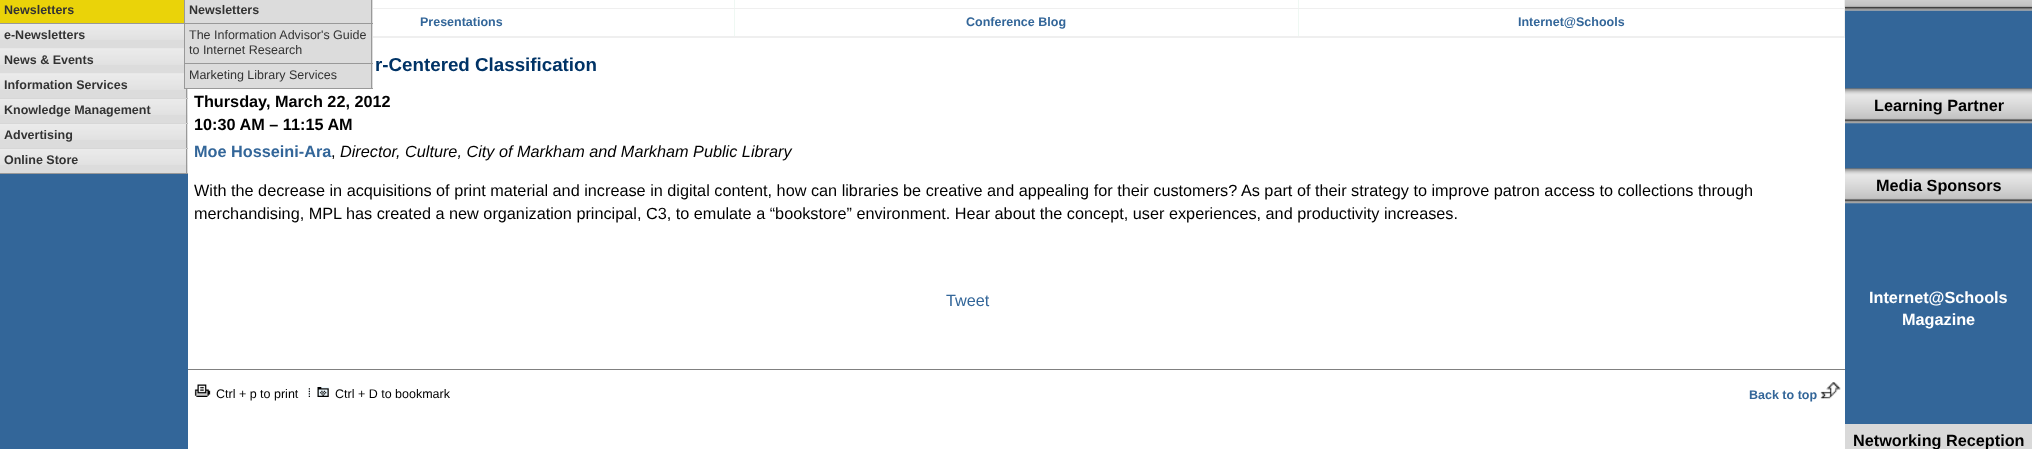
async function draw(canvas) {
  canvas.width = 2032;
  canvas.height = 449;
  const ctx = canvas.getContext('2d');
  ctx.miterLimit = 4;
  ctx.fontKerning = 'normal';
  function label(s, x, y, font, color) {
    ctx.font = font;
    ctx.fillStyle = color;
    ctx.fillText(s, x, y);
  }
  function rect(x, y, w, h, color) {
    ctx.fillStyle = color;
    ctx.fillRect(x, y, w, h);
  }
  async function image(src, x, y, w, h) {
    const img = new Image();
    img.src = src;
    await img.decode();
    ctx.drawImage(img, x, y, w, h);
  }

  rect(0, 0, 2032, 449, '#fff');
  rect(0, 174, 188, 275, '#369');
  rect(0, 40, 188, 133, '#dcdcdc');
  rect(0, 0, 184, 23, '#ead309');
  rect(0, 23, 188, 1, '#999');
  label('Newsletters', 4, 14, 'bold 12.5px Liberation Sans', '#333');
  await image('assets/img3.png', 0, 73, 188, 17);
  rect(185, 0, 188, 88, '#dcdcdc');
  rect(184, 0, 1, 89, '#999');
  rect(371, 0, 1, 89, '#999');
  rect(185, 23, 188, 1, '#999');
  label('Newsletters', 189, 14, 'bold 12.5px Liberation Sans', '#333');
  rect(185, 63, 188, 1, '#999');
  label('The Information Advisor\'s Guide', 189, 39, '12.5px Liberation Sans', '#333');
  label('to Internet Research', 189, 54, '12.5px Liberation Sans', '#333');
  rect(185, 88, 188, 1, '#999');
  label('Marketing Library Services', 189, 79, '12.5px Liberation Sans', '#333');
  await image('assets/img1.png', 0, 24, 184, 16);
  label('e-Newsletters', 4, 39, 'bold 12.5px Liberation Sans', '#333');
  await image('assets/img2.png', 0, 48, 184, 17);
  label('News & Events', 4, 64, 'bold 12.5px Liberation Sans', '#333');
  rect(186, 89, 1, 10, '#999');
  rect(0, 98, 188, 1, '#999');
  label('Information Services', 4, 89, 'bold 12.5px Liberation Sans', '#333');
  await image('assets/img3.png', 0, 98, 188, 17);
  rect(186, 99, 1, 25, '#999');
  rect(0, 123, 188, 1, '#999');
  label('Knowledge Management', 4, 114, 'bold 12.5px Liberation Sans', '#333');
  await image('assets/img3.png', 0, 123, 188, 17);
  rect(186, 124, 1, 25, '#999');
  rect(0, 148, 188, 1, '#999');
  label('Advertising', 4, 139, 'bold 12.5px Liberation Sans', '#333');
  await image('assets/img3.png', 0, 148, 188, 17);
  rect(186, 149, 1, 25, '#999');
  rect(0, 173, 188, 1, '#999');
  label('Online Store', 4, 164, 'bold 12.5px Liberation Sans', '#333');
  rect(373, 0, 1472, 38, '#efefef');
  rect(734, 0, 565, 8, '#eff8f3');
  rect(373, 0, 361, 8, '#fff');
  rect(735, 0, 563, 8, '#fff');
  rect(1299, 0, 545, 8, '#fff');
  rect(734, 9, 565, 27, '#eff8f3');
  rect(373, 9, 361, 27, '#fff');
  label('Presentations', 420, 26, 'bold 12.5px Liberation Sans', '#369');
  rect(735, 9, 563, 27, '#fff');
  label('Conference Blog', 966, 26, 'bold 12.5px Liberation Sans', '#369');
  rect(1299, 9, 545, 27, '#fff');
  label('Internet@Schools', 1518, 26, 'bold 12.5px Liberation Sans', '#369');
  label('r-Centered Classification', 375, 71, 'bold 18.75px Liberation Sans', '#036');
  label('Thursday, March 22, 2012', 194, 107, 'bold 16.25px Liberation Sans', '#000');
  label('10:30 AM – 11:15 AM', 194, 130, 'bold 16.25px Liberation Sans', '#000');
  label('Moe Hosseini-Ara', 194, 157, 'bold 16.25px Liberation Sans', '#369');
  label(',', 331, 157, '16.25px Liberation Sans', '#000');
  label('Director, Culture, City of Markham and Markham Public Library', 340, 157, 'italic 16.25px Liberation Sans', '#000');
  label('With the decrease in acquisitions of print material and increase in digital content, how can libraries be creative and appealing for their customers? As part of their strategy to improve patron access to collections through', 194, 196, '16.25px Liberation Sans', '#000');
  label('merchandising, MPL has created a new organization principal, C3, to emulate a “bookstore” environment. Hear about the concept, user experiences, and productivity increases.', 194, 219, '16.25px Liberation Sans', '#000');
  label('Tweet', 946, 306, '16.25px Liberation Sans', '#369');
  rect(188, 369, 1657, 1, '#808080');
  await image('assets/img4.png', 194, 384, 17, 13);
  label('Ctrl + p to print', 216, 398, '12.5px Liberation Sans', '#000');
  await image('assets/img5.png', 308, 388, 2, 9);
  await image('assets/img6.png', 317, 387, 12, 10);
  label('Ctrl + D to bookmark', 335, 398, '12.5px Liberation Sans', '#000');
  label('Back to top', 1749, 399, 'bold 12.5px Liberation Sans', '#369');
  await image('assets/img7.png', 1820, 382, 21, 17);
  rect(1845, 10, 187, 414, '#369');
  await image('assets/img8.png', 1845, 0, 187, 11);
  await image('assets/img9.png', 1845, 88, 187, 36);
  label('Learning Partner', 1874, 111, 'bold 16.25px Liberation Sans', '#000');
  await image('assets/img10.png', 1845, 168, 187, 36);
  label('Media Sponsors', 1876, 191, 'bold 16.25px Liberation Sans', '#000');
  label('Internet@Schools', 1869, 303, 'bold 16.25px Liberation Sans', '#fff');
  label('Magazine', 1902, 325, 'bold 16.25px Liberation Sans', '#fff');
  rect(1845, 424, 187, 25, '#d9d9d9');
  label('Networking Reception', 1853, 446, 'bold 16.25px Liberation Sans', '#000');
}

draw(document.querySelector('canvas'));
